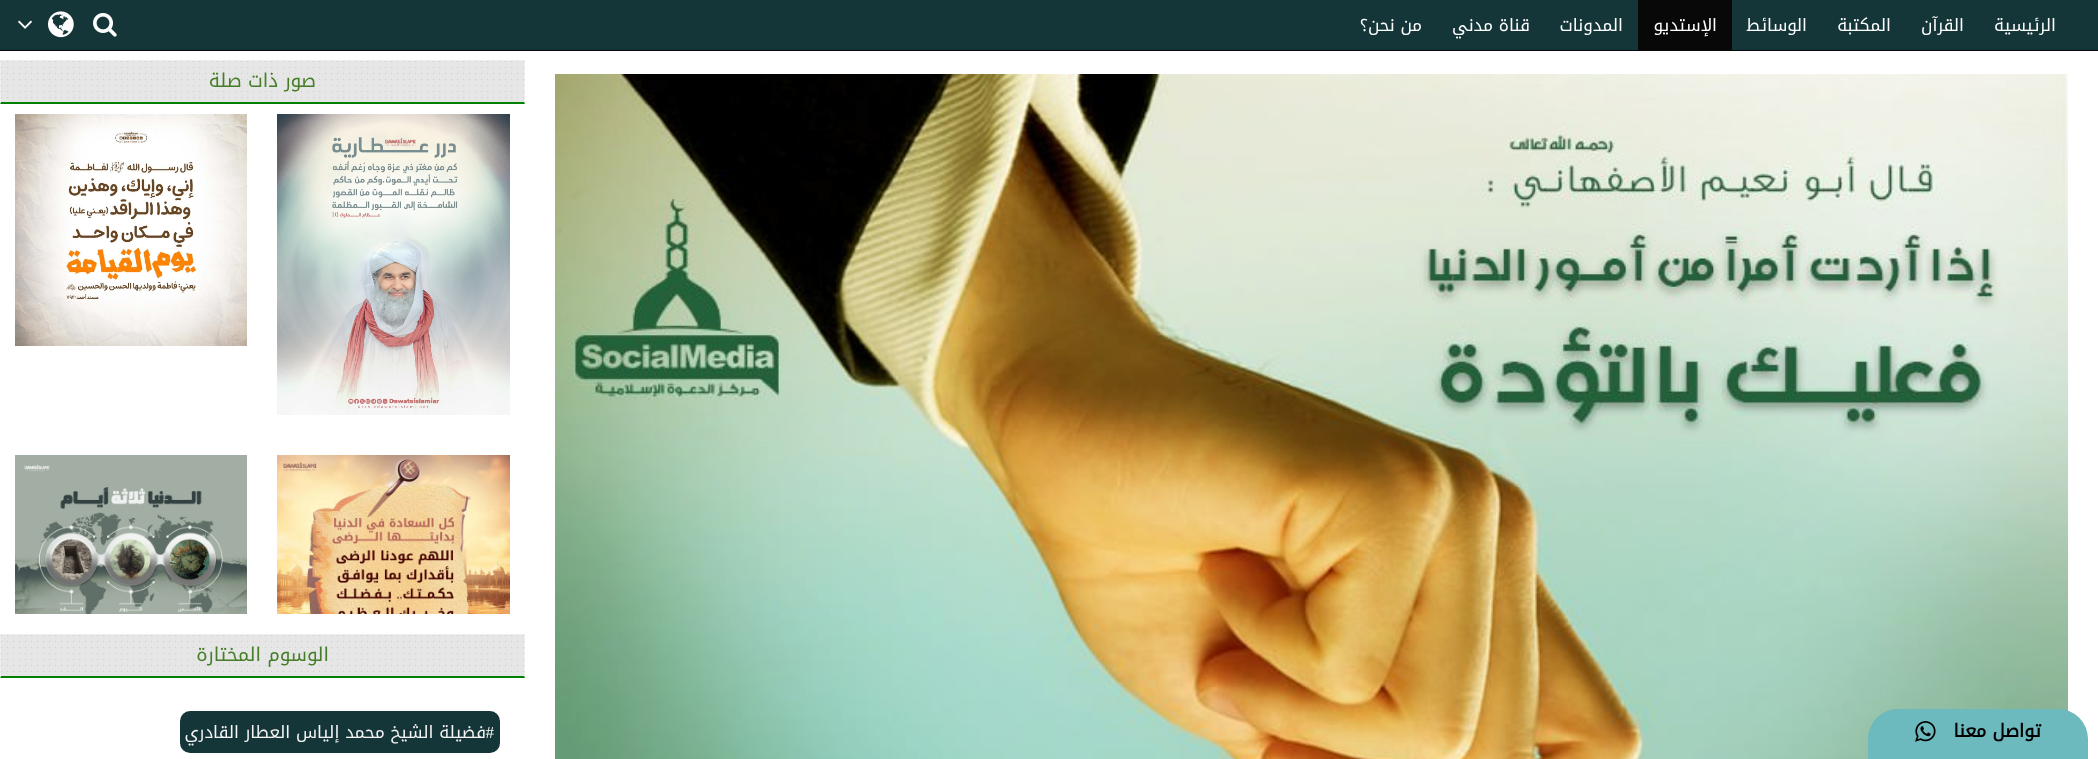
async function draw(canvas) {
  canvas.width = 2098;
  canvas.height = 759;
  const ctx = canvas.getContext('2d');
  ctx.miterLimit = 4;
  ctx.fontKerning = 'normal';
  function label(s, x, y, font, color) {
    ctx.font = font;
    ctx.fillStyle = color;
    ctx.fillText(s, x, y);
  }
  function rect(x, y, w, h, color) {
    ctx.fillStyle = color;
    ctx.fillRect(x, y, w, h);
  }
  function roundedRect(x, y, w, h, r, color) {
    ctx.fillStyle = color;
    ctx.beginPath();
    ctx.roundRect(x, y, w, h, r);
    ctx.fill();
  }
  async function image(src, x, y, w, h) {
    const img = new Image();
    img.src = src;
    await img.decode();
    ctx.drawImage(img, x, y, w, h);
  }
  let path;

  rect(0, 0, 2098, 759, '#fff');
  rect(0, 0, 2098, 50, '#153638');
  rect(0, 50, 2098, 1, '#080808');
  ctx.direction = 'rtl';
  label('الرئيسية', 2056, 31, '17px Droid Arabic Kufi', '#fff');
  label('القرآن', 1964, 31, '17px Droid Arabic Kufi', '#fff');
  label('المكتبة', 1891, 31, '17px Droid Arabic Kufi', '#fff');
  label('الوسائط', 1807, 31, '17px Droid Arabic Kufi', '#fff');
  rect(1638, 0, 94, 50, '#080808');
  label('الإستديو', 1717, 31, '17px Droid Arabic Kufi', '#fff');
  label('المدونات', 1623, 31, '17px Droid Arabic Kufi', '#fff');
  label('قناة مدني', 1530, 31, '17px Droid Arabic Kufi', '#fff');
  label('من نحن؟', 1422, 31, '17px Droid Arabic Kufi', '#fff');
  await image('assets/img1.png', 93, 13, 24, 24);
  await image('assets/img2.png', 48, 11, 26, 27);
  await image('assets/img3.png', 18, 20, 14, 9);
  await image('assets/img10.png', 555, 74, 1513, 685);
  ctx.fillStyle = '#6cb9be';
  ctx.beginPath();
  ctx.roundRect(1868, 709, 220, 50, [30, 30, 0, 0]);
  ctx.fill();
  label('تواصل معنا', 2041, 737, 'bold 18px Droid Arabic Kufi', '#000');
  await image('assets/img4.png', 1915, 721, 21, 21);
  await image('assets/img5.png', 0, 61, 525, 43);
  rect(0, 60, 525, 1, '#eee');
  path = new Path2D('M525 60V104L524 102V61Z');
  ctx.fill(path);
  ctx.fillStyle = '#008000';
  path = new Path2D('M525 104H0L1 102H524Z');
  ctx.fill(path);
  ctx.fillStyle = '#eee';
  path = new Path2D('M0 104V60L1 61V102Z');
  ctx.fill(path);
  label('صور ذات صلة', 316, 87, '19px Droid Arabic Kufi', '#467d28');
  await image('assets/img6.png', 277, 114, 233, 301);
  await image('assets/img7.png', 15, 114, 232, 232);
  await image('assets/img8.png', 277, 455, 233, 159);
  await image('assets/img9.png', 15, 455, 232, 159);
  await image('assets/img5.png', 0, 635, 525, 43);
  rect(0, 634, 525, 1, '#eee');
  path = new Path2D('M525 634V678L524 676V635Z');
  ctx.fill(path);
  ctx.fillStyle = '#008000';
  path = new Path2D('M525 678H0L1 676H524Z');
  ctx.fill(path);
  ctx.fillStyle = '#eee';
  path = new Path2D('M0 678V634L1 635V676Z');
  ctx.fill(path);
  label('الوسوم المختارة', 329, 661, '19px Droid Arabic Kufi', '#467d28');
  roundedRect(180, 711, 320, 42, 10, '#153638');
  label('#', 494, 738, '17px Liberation Serif', '#f5f5f5');
  label('فضيلة الشيخ محمد إلياس العطار القادري', 486, 738, '17px Droid Arabic Kufi', '#f5f5f5');
}

draw(document.querySelector('canvas'));
